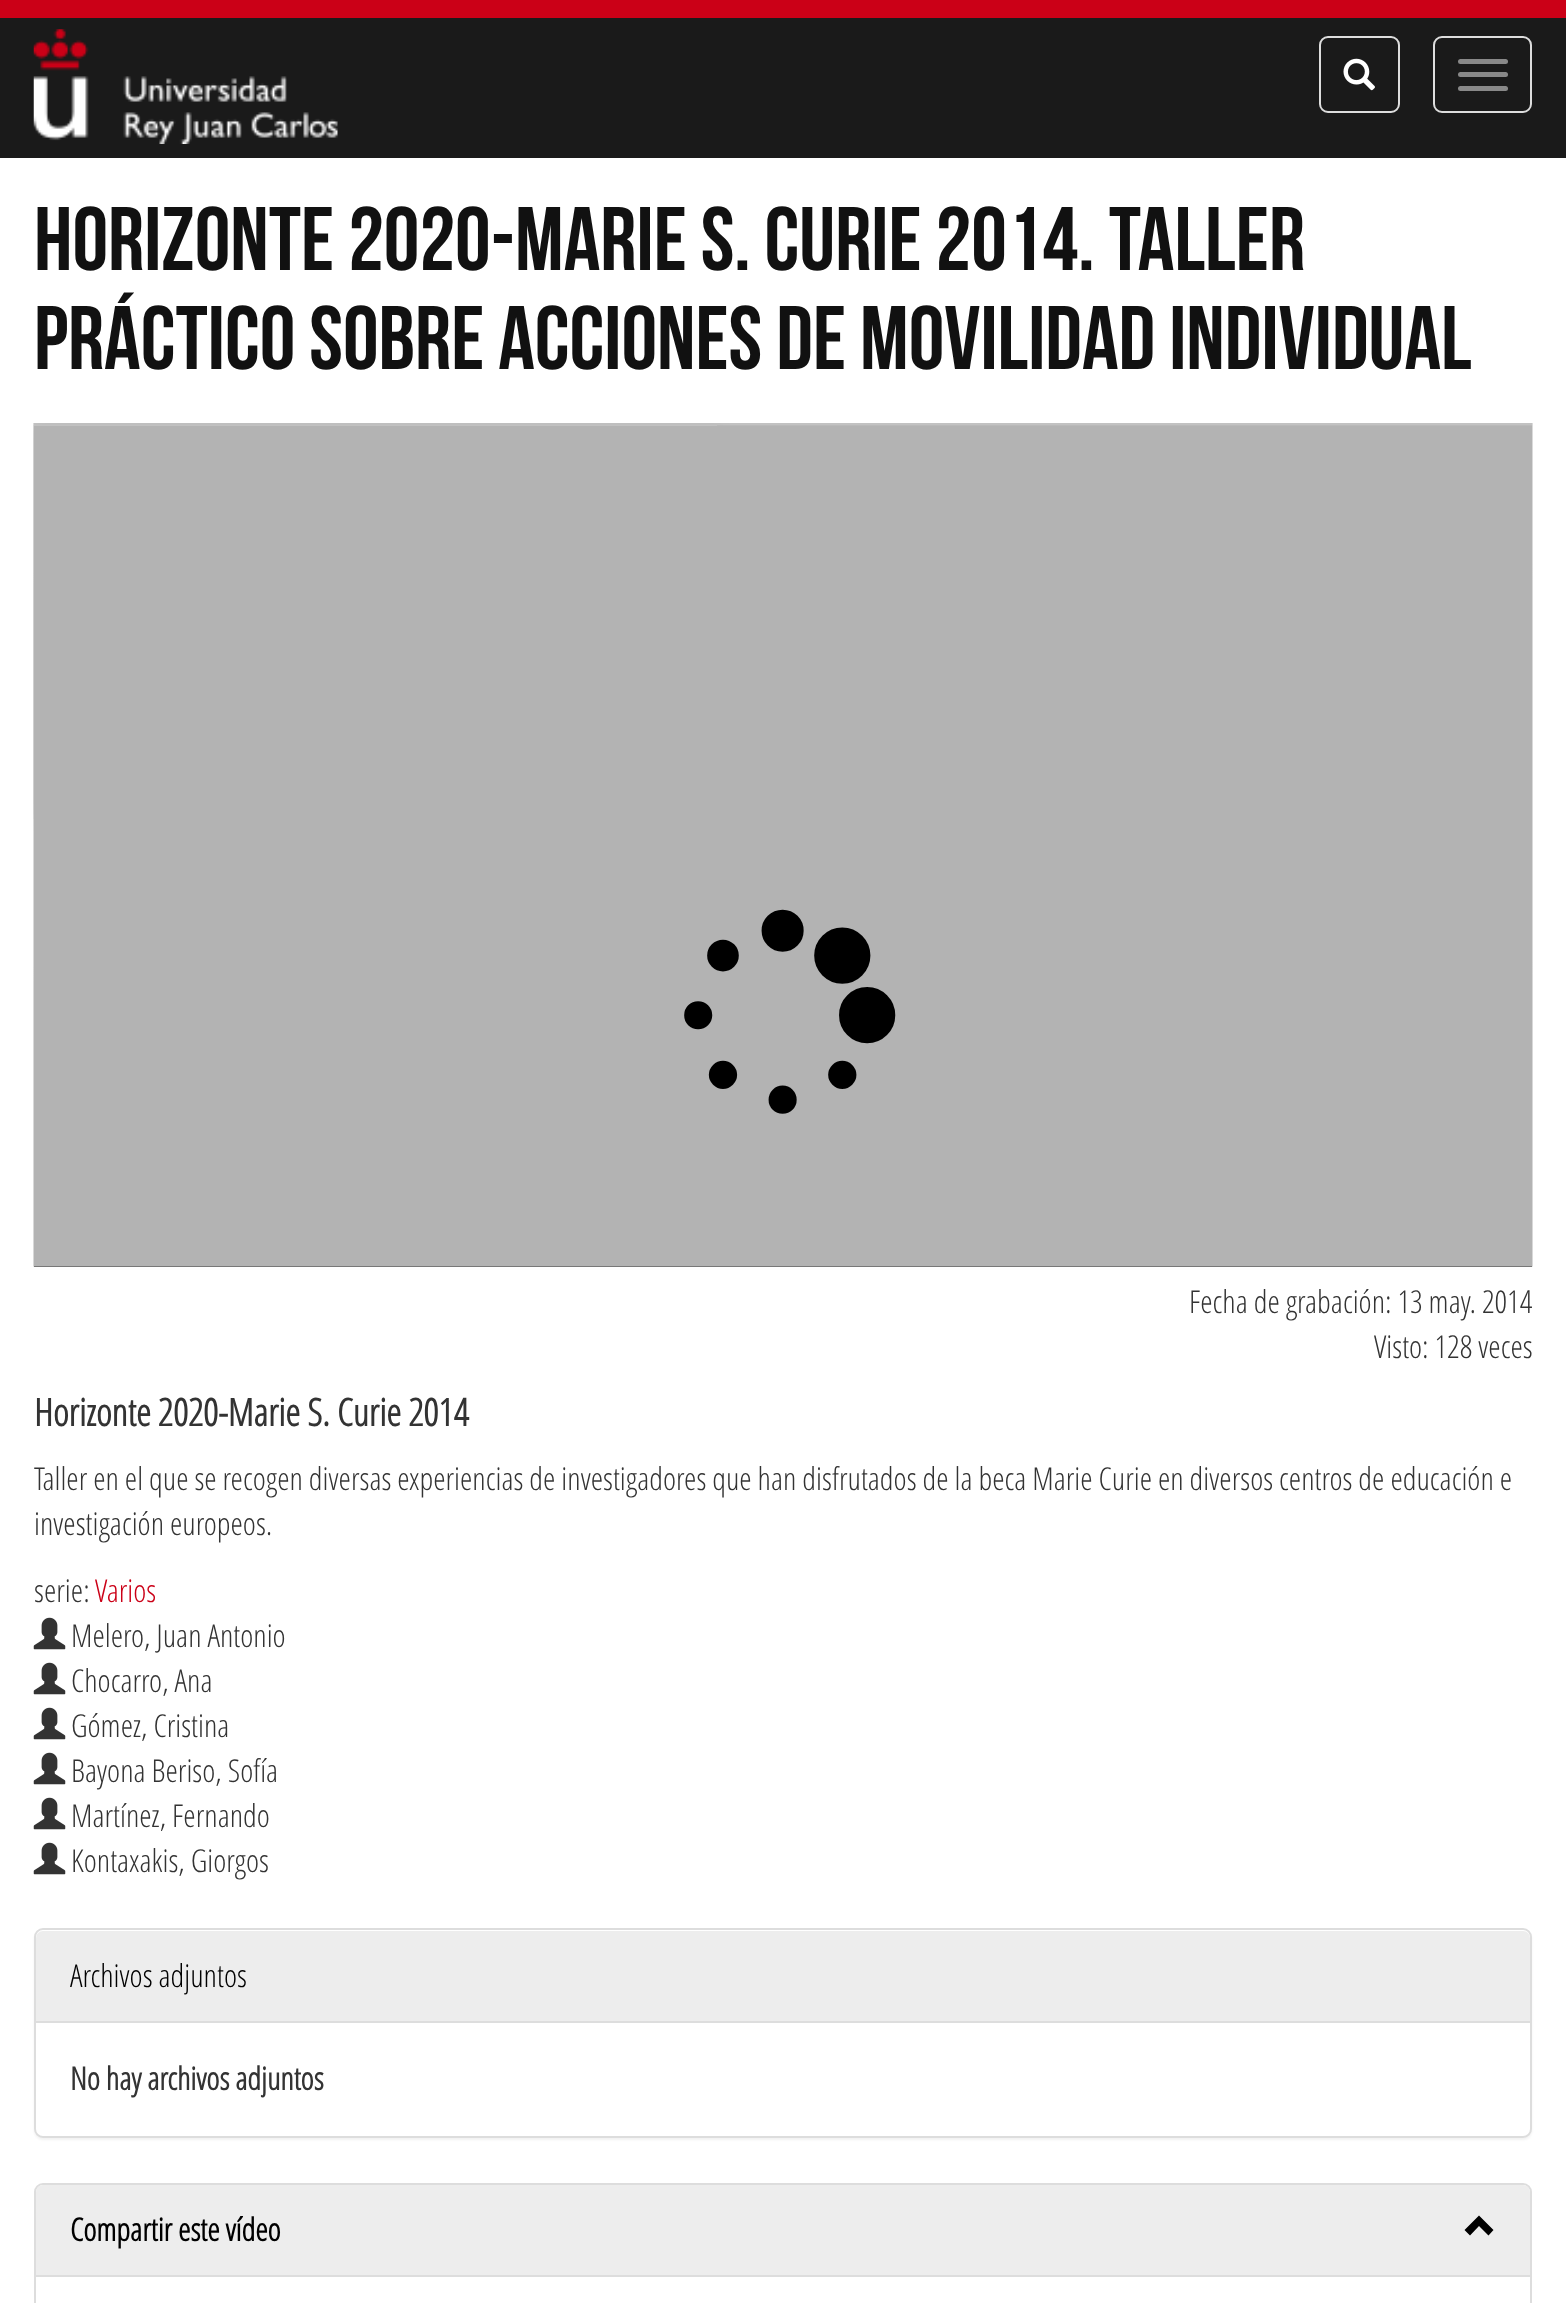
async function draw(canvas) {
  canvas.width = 1566;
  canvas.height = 2303;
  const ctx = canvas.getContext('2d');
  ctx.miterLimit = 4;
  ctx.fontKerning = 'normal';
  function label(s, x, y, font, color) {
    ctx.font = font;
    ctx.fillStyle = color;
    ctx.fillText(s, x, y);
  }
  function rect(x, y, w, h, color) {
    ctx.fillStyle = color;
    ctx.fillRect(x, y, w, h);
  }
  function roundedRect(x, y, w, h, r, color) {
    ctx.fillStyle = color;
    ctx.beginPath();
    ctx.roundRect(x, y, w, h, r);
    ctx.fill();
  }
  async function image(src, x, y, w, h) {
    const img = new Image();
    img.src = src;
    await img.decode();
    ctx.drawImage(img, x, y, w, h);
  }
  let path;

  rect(0, 0, 1566, 2303, '#fff');
  rect(0, 18, 1566, 140, '#1a1a1a');
  rect(0, 0, 1566, 18, '#cb0017');
  await image('assets/img1.png', 33, 29, 305, 115);
  ctx.beginPath();
  ctx.roundRect(1320, 37, 79, 75, 8);
  ctx.strokeStyle = '#ddd';
  ctx.lineWidth = 2;
  ctx.stroke();
  await image('assets/img2.png', 1343, 58, 32, 33);
  ctx.beginPath();
  ctx.roundRect(1434, 37, 97, 75, 8);
  ctx.stroke();
  roundedRect(1458, 59, 50, 5, 2.5, '#888');
  roundedRect(1458, 72, 50, 5, 2.5, '#888');
  roundedRect(1458, 86, 50, 5, 2.5, '#888');
  label('HORIZONTE 2020-MARIE S. CURIE 2014. TALLER', 34, 270, '90px Bebas Neue', '#111');
  label('PRÁCTICO SOBRE ACCIONES DE MOVILIDAD INDIVIDUAL', 34, 369, '90px Bebas Neue', '#111');
  await image('assets/img3.png', 33, 423, 1500, 844);
  label('Fecha de grabación: 13 may. 2014', 1189, 1313, '300 31.5px Open Sans', '#333');
  label('Visto: 128 veces', 1374, 1358, '300 31.5px Open Sans', '#333');
  label('Horizonte 2020-Marie S. Curie 2014', 34, 1426, 'bold 37.75px Open Sans', '#333');
  label('Taller en el que se recogen diversas experiencias de investigadores que han disfrutados de la beca Marie Curie en diversos centros de educación e', 34, 1490, '300 31.5px Open Sans', '#333');
  label('investigación europeos.', 34, 1535, '300 31.5px Open Sans', '#333');
  label('serie:', 34, 1602, '300 31.5px Open Sans', '#333');
  label('Varios', 95, 1602, '300 31.5px Open Sans', '#cb0017');
  await image('assets/img4.png', 33, 1617, 33, 33);
  label('Melero, Juan Antonio', 71, 1647, '300 31.5px Open Sans', '#333');
  await image('assets/img4.png', 33, 1662, 33, 33);
  label('Chocarro, Ana', 71, 1692, '300 31.5px Open Sans', '#333');
  await image('assets/img4.png', 33, 1707, 33, 33);
  label('Gómez, Cristina', 71, 1737, '300 31.5px Open Sans', '#333');
  await image('assets/img4.png', 33, 1752, 33, 33);
  label('Bayona Beriso, Sofía', 71, 1782, '300 31.5px Open Sans', '#333');
  await image('assets/img4.png', 33, 1797, 33, 33);
  label('Martínez, Fernando', 71, 1827, '300 31.5px Open Sans', '#333');
  await image('assets/img4.png', 33, 1842, 33, 33);
  label('Kontaxakis, Giorgos', 71, 1872, '300 31.5px Open Sans', '#333');
  ctx.fillStyle = '#0000000d';
  ctx.filter = 'blur(1px)';
  ctx.beginPath();
  ctx.roundRect(34, 1931, 1498, 209, 9);
  ctx.fill();
  ctx.filter = 'none';
  ctx.fillStyle = '#fff';
  ctx.beginPath();
  ctx.roundRect(35, 1929, 1496, 208, 8);
  ctx.fill();
  ctx.stroke();
  ctx.fillStyle = '#ededed';
  ctx.beginPath();
  ctx.roundRect(36, 1931, 1494, 92, [7, 7, 0, 0]);
  ctx.fill();
  rect(36, 2021, 1494, 2, '#ddd');
  label('Archivos adjuntos', 70, 1987, '300 31.5px Open Sans', '#000');
  label('No hay archivos adjuntos', 70, 2090, 'bold 31.5px Open Sans', '#333');
  ctx.beginPath();
  ctx.roundRect(35, 2184, 1496, 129, 8);
  ctx.stroke();
  ctx.fillStyle = '#ededed';
  ctx.beginPath();
  ctx.roundRect(36, 2185, 1494, 92, [7, 7, 0, 0]);
  ctx.fill();
  rect(36, 2275, 1494, 2, '#ddd');
  label('Compartir este vídeo', 70, 2241, 'bold 31.5px Open Sans', '#000');
  path = new Path2D('M1493.5 2230L1488.5 2235.5L1479 2226L1470 2235.5L1464.5 2230L1479 2215.5Z');
  ctx.fill(path);
}

draw(document.querySelector('canvas'));
